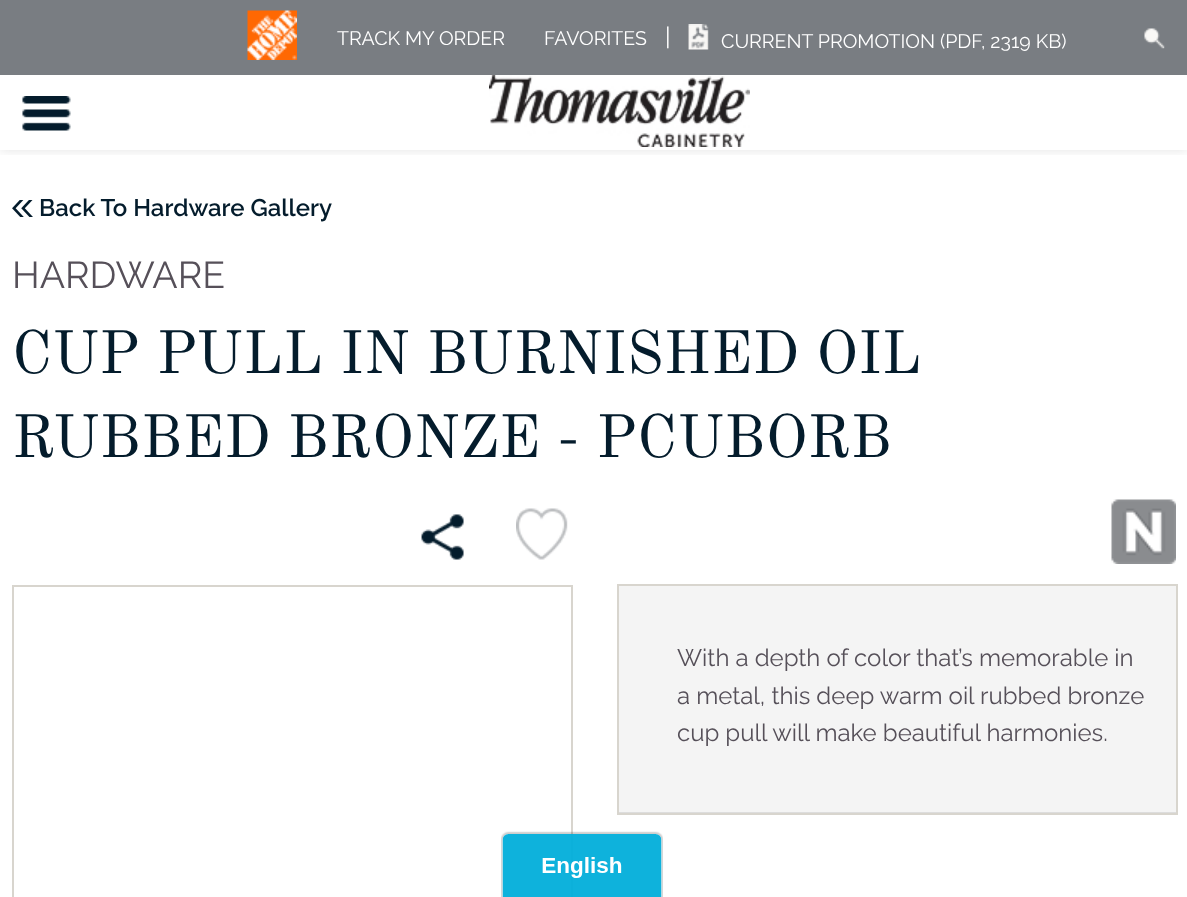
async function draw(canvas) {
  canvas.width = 1187;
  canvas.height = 897;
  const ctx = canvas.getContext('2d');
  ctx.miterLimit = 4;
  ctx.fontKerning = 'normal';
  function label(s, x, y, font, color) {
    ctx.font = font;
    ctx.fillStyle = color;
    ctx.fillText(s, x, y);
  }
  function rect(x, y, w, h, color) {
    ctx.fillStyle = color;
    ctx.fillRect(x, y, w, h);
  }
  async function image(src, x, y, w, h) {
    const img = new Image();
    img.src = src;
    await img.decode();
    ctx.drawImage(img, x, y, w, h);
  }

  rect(0, 0, 1187, 897, '#fff');
  rect(0, 0, 1187, 75, '#797d82');
  ctx.save();
  ctx.beginPath();
  ctx.rect(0, 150, 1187, 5);
  ctx.clip();
  ctx.fillStyle = '#0000001c';
  ctx.filter = 'blur(6px)';
  ctx.beginPath();
  ctx.rect(0, 0, 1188, 150);
  ctx.fill();
  ctx.filter = 'none';
  ctx.restore();
  await image('assets/img1.png', 247, 10, 50, 50);
  label('TRACK MY ORDER', 337, 45, '19.5px Raleway', '#fff');
  label('FAVORITES', 544, 45, '19.5px Raleway', '#fff');
  label('|', 665, 45, '24px Raleway', '#fff');
  await image('assets/img2.png', 688, 24, 21, 26);
  label('CURRENT PROMOTION (PDF, 2319 KB)', 721, 48, '19.5px Raleway', '#fff');
  await image('assets/img3.png', 1144, 28, 21, 21);
  await image('assets/img4.png', 22, 96, 49, 35);
  await image('assets/img5.png', 489, 75, 261, 72);
  await image('assets/img6.png', 12, 200, 21, 17);
  label('Back To Hardware Gallery', 39, 216, '600 24px Raleway', '#041c2c');
  label('HARDWARE', 12, 288, '37.5px Raleway', '#565059');
  label('CUP PULL IN BURNISHED OIL', 12, 373, '60px Old Standard TT', '#041c2c');
  label('RUBBED BRONZE - PCUBORB', 12, 457, '60px Old Standard TT', '#041c2c');
  await image('assets/img7.png', 421, 514, 43, 46);
  await image('assets/img8.png', 516, 508, 52, 52);
  await image('assets/img9.png', 1111, 499, 65, 65);
  ctx.strokeStyle = '#d8d5ce';
  ctx.lineWidth = 2;
  ctx.strokeRect(13, 586, 559, 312);
  rect(618, 812, 558, 1, '#ddd');
  rect(619, 586, 557, 226, '#f4f4f4');
  ctx.strokeRect(618, 585, 559, 229);
  label('With a depth of color that’s memorable in', 677, 666, '24px Raleway', '#565059');
  label('a metal, this deep warm oil rubbed bronze', 677, 704, '24px Raleway', '#565059');
  label('cup pull will make beautiful harmonies.', 677, 741, '24px Raleway', '#565059');
  await image('assets/img10.png', 501, 831, 162, 66);
}

draw(document.querySelector('canvas'));
